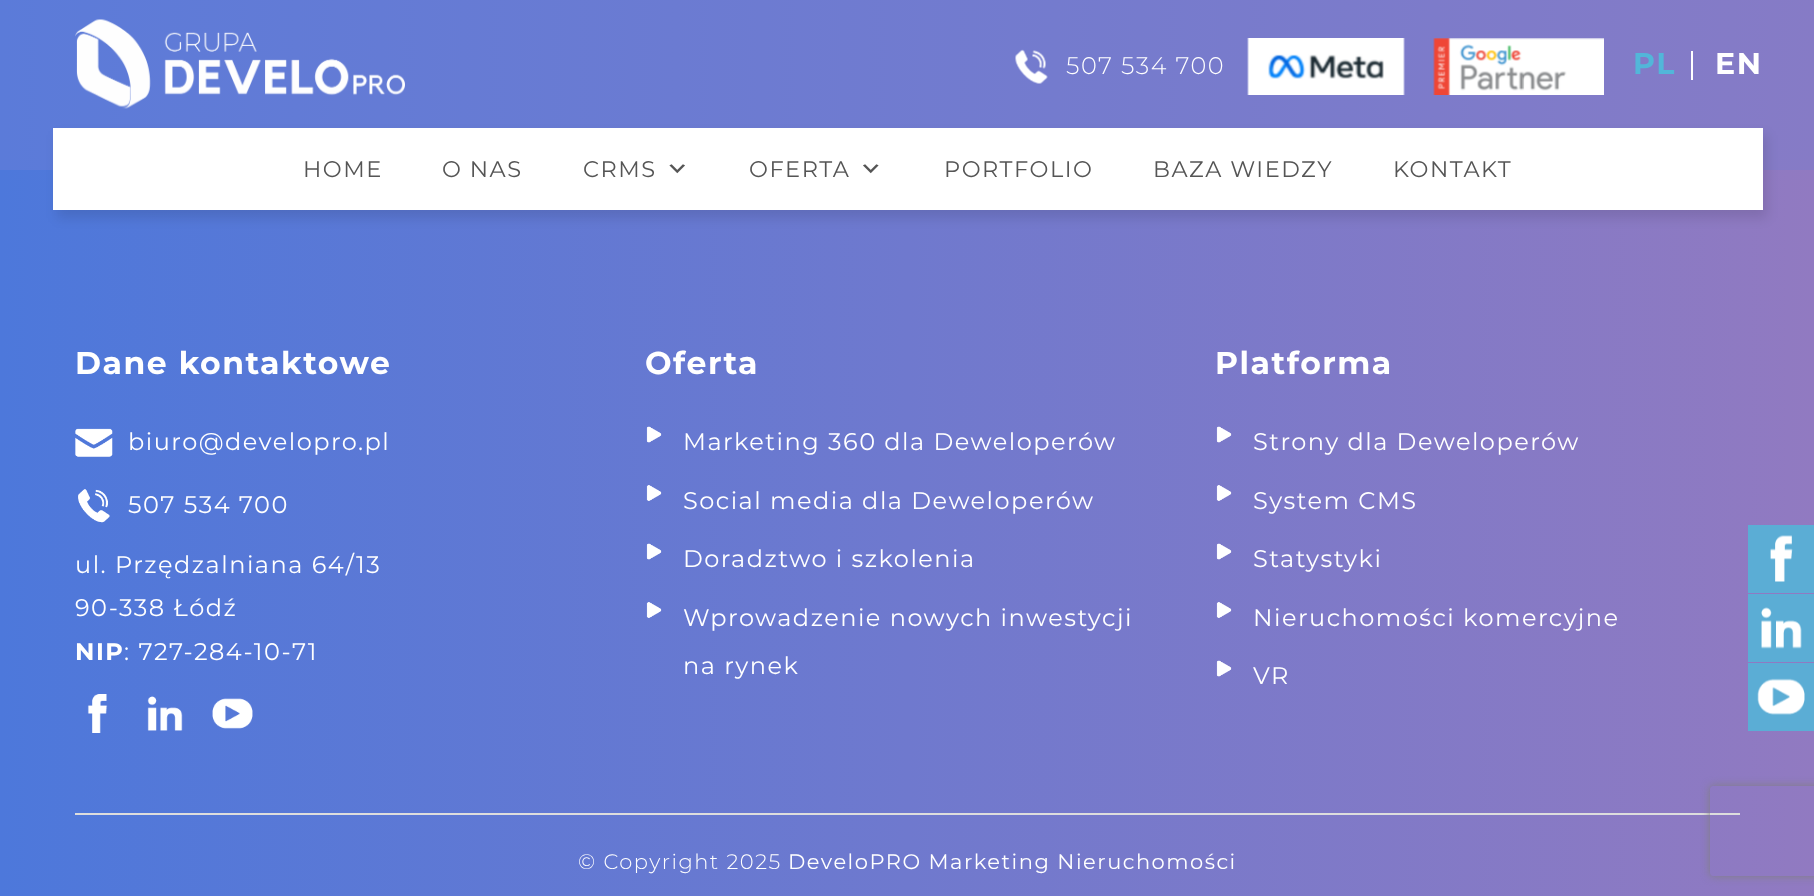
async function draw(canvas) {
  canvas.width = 1814;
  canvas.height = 896;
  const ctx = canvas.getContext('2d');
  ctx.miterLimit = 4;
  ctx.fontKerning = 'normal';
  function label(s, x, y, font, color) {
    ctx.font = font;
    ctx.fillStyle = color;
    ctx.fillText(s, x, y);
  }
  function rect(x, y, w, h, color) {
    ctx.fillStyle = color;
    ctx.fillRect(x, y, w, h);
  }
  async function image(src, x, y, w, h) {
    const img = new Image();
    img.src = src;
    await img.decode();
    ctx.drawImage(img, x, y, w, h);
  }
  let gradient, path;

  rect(0, 0, 1814, 896, '#fff');
  gradient = ctx.createLinearGradient(0, 85, 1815, 85);
  gradient.addColorStop(0, '#5b7bd9');
  gradient.addColorStop(1, '#867bc6');
  ctx.fillStyle = gradient;
  ctx.fillRect(0, 0, 1814, 170);
  await image('assets/img1.png', 75, 19, 330, 90);
  await image('assets/img2.png', 1015, 49, 33, 35);
  ctx.letterSpacing = '1.5px';
  label('507 534 700', 1066, 74, '300 24px Montserrat', '#fff');
  await image('assets/img3.png', 1247, 38, 158, 57);
  await image('assets/img4.png', 1433, 38, 171, 57);
  label('PL', 1633, 74, 'bold 30px Montserrat', '#52b6d9');
  rect(1691, 51, 2, 29, '#fff');
  label('EN', 1715, 74, 'bold 30px Montserrat', '#fff');
  gradient = ctx.createLinearGradient(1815, 530, 0, 530);
  gradient.addColorStop(0, '#917ac1');
  gradient.addColorStop(1, '#4d78db');
  ctx.fillStyle = gradient;
  ctx.fillRect(0, 170, 1814, 726);
  ctx.fillStyle = '#0000001a';
  ctx.filter = 'blur(6px)';
  ctx.beginPath();
  ctx.rect(57, 135, 1710, 83);
  ctx.fill();
  ctx.filter = 'none';
  rect(53, 128, 1710, 82, '#fff');
  label('HOME', 303, 177, '22.5px Montserrat', '#555');
  label('O NAS', 442, 177, '22.5px Montserrat', '#555');
  label('CRMS', 583, 177, '22.5px Montserrat', '#555');
  await image('assets/img5.png', 669, 164, 16, 10);
  label('OFERTA', 749, 177, '22.5px Montserrat', '#555');
  await image('assets/img6.png', 863, 164, 16, 10);
  label('PORTFOLIO', 944, 177, '22.5px Montserrat', '#555');
  label('BAZA WIEDZY', 1153, 177, '22.5px Montserrat', '#555');
  label('KONTAKT', 1393, 177, '22.5px Montserrat', '#555');
  rect(75, 813, 1665, 2, '#ddd');
  label('Dane kontaktowe', 75, 374, 'bold 31.5px Montserrat', '#fff');
  await image('assets/img7.png', 75, 428, 38, 29);
  label('biuro@developro.pl', 128, 450, '24px Montserrat', '#fff');
  await image('assets/img8.png', 78, 489, 32, 34);
  label('507 534 700', 128, 513, '24px Montserrat', '#fff');
  label('ul. Przędzalniana 64/13', 75, 573, '24px Montserrat', '#fff');
  label('90-338 Łódź', 75, 616, '24px Montserrat', '#fff');
  label('NIP', 75, 660, 'bold 24px Montserrat', '#fff');
  label(': 727-284-10-71', 124, 660, '24px Montserrat', '#fff');
  await image('assets/img9.png', 87, 694, 21, 39);
  await image('assets/img10.png', 147, 696, 36, 35);
  await image('assets/img11.png', 212, 698, 41, 31);
  label('Oferta', 645, 374, 'bold 31.5px Montserrat', '#fff');
  await image('assets/img12.png', 646, 426, 16, 17);
  label('Marketing 360 dla Deweloperów', 683, 450, '24px Montserrat', '#fff');
  await image('assets/img13.png', 646, 485, 16, 16);
  label('Social media dla Deweloperów', 683, 509, '24px Montserrat', '#fff');
  await image('assets/img12.png', 646, 543, 16, 17);
  label('Doradztwo i szkolenia', 683, 567, '24px Montserrat', '#fff');
  await image('assets/img13.png', 646, 602, 16, 16);
  label('Wprowadzenie nowych inwestycji', 683, 626, '24px Montserrat', '#fff');
  label('na rynek', 683, 674, '24px Montserrat', '#fff');
  label('Platforma', 1215, 374, 'bold 31.5px Montserrat', '#fff');
  await image('assets/img14.png', 1216, 426, 16, 17);
  label('Strony dla Deweloperów', 1253, 450, '24px Montserrat', '#fff');
  await image('assets/img15.png', 1216, 485, 16, 16);
  label('System CMS', 1253, 509, '24px Montserrat', '#fff');
  await image('assets/img14.png', 1216, 543, 16, 17);
  label('Statystyki', 1253, 567, '24px Montserrat', '#fff');
  await image('assets/img15.png', 1216, 602, 16, 16);
  label('Nieruchomości komercyjne', 1253, 626, '24px Montserrat', '#fff');
  await image('assets/img14.png', 1216, 660, 16, 17);
  label('VR', 1253, 684, '24px Montserrat', '#fff');
  label('© Copyright 2025', 578, 869, '300 21px Montserrat', '#fff');
  label('DeveloPRO Marketing Nieruchomości', 788, 869, '21px Montserrat', '#fff');
  rect(1748, 525, 66, 68, '#5badd5');
  await image('assets/img16.png', 1770, 535, 23, 47);
  rect(1748, 594, 66, 68, '#5badd5');
  await image('assets/img17.png', 1761, 607, 41, 42);
  rect(1748, 663, 66, 68, '#5badd5');
  await image('assets/img18.png', 1757, 678, 48, 37);
  ctx.save();
  path = new Path2D('M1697 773H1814V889H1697ZM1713 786H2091C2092.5 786 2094 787.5 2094 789V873C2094 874.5 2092.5 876 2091 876H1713C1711.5 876 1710 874.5 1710 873V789C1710 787.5 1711.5 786 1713 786Z');
  ctx.clip(path, 'evenodd');
  ctx.fillStyle = '#808080';
  ctx.filter = 'blur(4px)';
  ctx.beginPath();
  ctx.roundRect(1710, 786, 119, 90, 3);
  ctx.fill();
  ctx.filter = 'none';
  ctx.restore();
}

draw(document.querySelector('canvas'));
